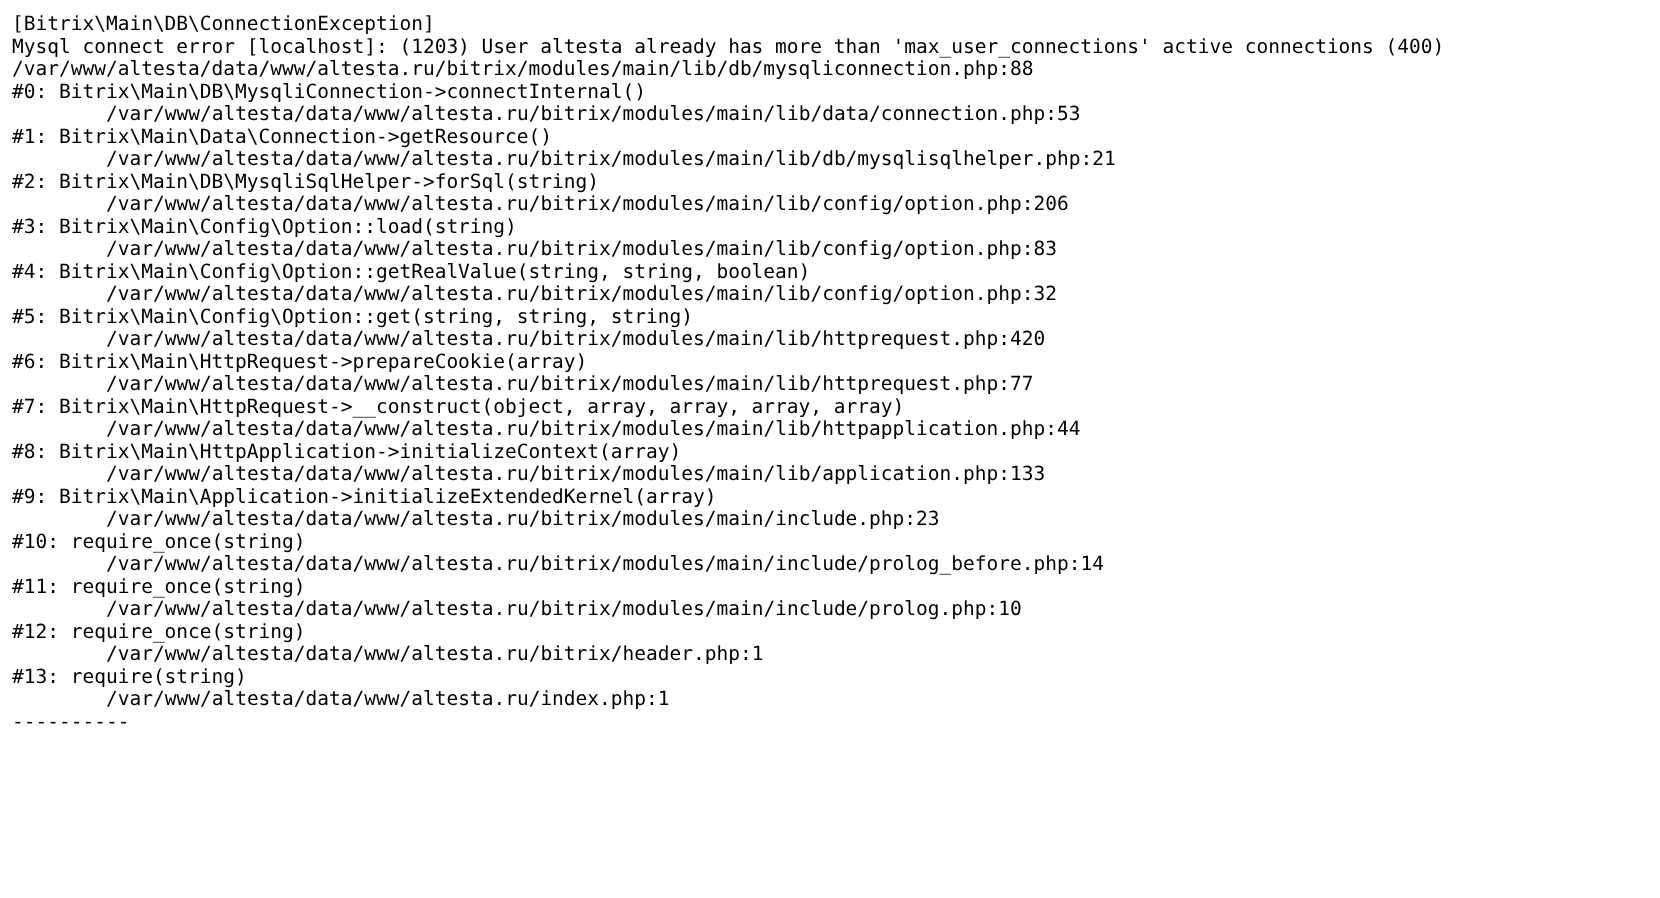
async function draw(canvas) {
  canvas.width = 1660;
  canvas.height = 898;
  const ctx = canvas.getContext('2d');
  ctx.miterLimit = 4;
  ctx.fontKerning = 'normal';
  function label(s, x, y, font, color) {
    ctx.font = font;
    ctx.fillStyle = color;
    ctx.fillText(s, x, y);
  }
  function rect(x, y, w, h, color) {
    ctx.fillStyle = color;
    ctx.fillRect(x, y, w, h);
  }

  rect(0, 0, 1660, 898, '#fff');
  label('[Bitrix\\Main\\DB\\ConnectionException]', 12, 30, '19.5px DejaVu Sans Mono', '#000');
  label('Mysql connect error [localhost]: (1203) User altesta already has more than \'max_user_connections\' active connections (400)', 12, 53, '19.5px DejaVu Sans Mono', '#000');
  label('/var/www/altesta/data/www/altesta.ru/bitrix/modules/main/lib/db/mysqliconnection.php:88', 12, 75, '19.5px DejaVu Sans Mono', '#000');
  label('#0: Bitrix\\Main\\DB\\MysqliConnection->connectInternal()', 12, 98, '19.5px DejaVu Sans Mono', '#000');
  label('/var/www/altesta/data/www/altesta.ru/bitrix/modules/main/lib/data/connection.php:53', 106, 120, '19.5px DejaVu Sans Mono', '#000');
  label('#1: Bitrix\\Main\\Data\\Connection->getResource()', 12, 143, '19.5px DejaVu Sans Mono', '#000');
  label('/var/www/altesta/data/www/altesta.ru/bitrix/modules/main/lib/db/mysqlisqlhelper.php:21', 106, 165, '19.5px DejaVu Sans Mono', '#000');
  label('#2: Bitrix\\Main\\DB\\MysqliSqlHelper->forSql(string)', 12, 188, '19.5px DejaVu Sans Mono', '#000');
  label('/var/www/altesta/data/www/altesta.ru/bitrix/modules/main/lib/config/option.php:206', 106, 210, '19.5px DejaVu Sans Mono', '#000');
  label('#3: Bitrix\\Main\\Config\\Option::load(string)', 12, 233, '19.5px DejaVu Sans Mono', '#000');
  label('/var/www/altesta/data/www/altesta.ru/bitrix/modules/main/lib/config/option.php:83', 106, 255, '19.5px DejaVu Sans Mono', '#000');
  label('#4: Bitrix\\Main\\Config\\Option::getRealValue(string, string, boolean)', 12, 278, '19.5px DejaVu Sans Mono', '#000');
  label('/var/www/altesta/data/www/altesta.ru/bitrix/modules/main/lib/config/option.php:32', 106, 300, '19.5px DejaVu Sans Mono', '#000');
  label('#5: Bitrix\\Main\\Config\\Option::get(string, string, string)', 12, 323, '19.5px DejaVu Sans Mono', '#000');
  label('/var/www/altesta/data/www/altesta.ru/bitrix/modules/main/lib/httprequest.php:420', 106, 345, '19.5px DejaVu Sans Mono', '#000');
  label('#6: Bitrix\\Main\\HttpRequest->prepareCookie(array)', 12, 368, '19.5px DejaVu Sans Mono', '#000');
  label('/var/www/altesta/data/www/altesta.ru/bitrix/modules/main/lib/httprequest.php:77', 106, 390, '19.5px DejaVu Sans Mono', '#000');
  label('#7: Bitrix\\Main\\HttpRequest->__construct(object, array, array, array, array)', 12, 413, '19.5px DejaVu Sans Mono', '#000');
  label('/var/www/altesta/data/www/altesta.ru/bitrix/modules/main/lib/httpapplication.php:44', 106, 435, '19.5px DejaVu Sans Mono', '#000');
  label('#8: Bitrix\\Main\\HttpApplication->initializeContext(array)', 12, 458, '19.5px DejaVu Sans Mono', '#000');
  label('/var/www/altesta/data/www/altesta.ru/bitrix/modules/main/lib/application.php:133', 106, 480, '19.5px DejaVu Sans Mono', '#000');
  label('#9: Bitrix\\Main\\Application->initializeExtendedKernel(array)', 12, 503, '19.5px DejaVu Sans Mono', '#000');
  label('/var/www/altesta/data/www/altesta.ru/bitrix/modules/main/include.php:23', 106, 525, '19.5px DejaVu Sans Mono', '#000');
  label('#10: require_once(string)', 12, 548, '19.5px DejaVu Sans Mono', '#000');
  label('/var/www/altesta/data/www/altesta.ru/bitrix/modules/main/include/prolog_before.php:14', 106, 570, '19.5px DejaVu Sans Mono', '#000');
  label('#11: require_once(string)', 12, 593, '19.5px DejaVu Sans Mono', '#000');
  label('/var/www/altesta/data/www/altesta.ru/bitrix/modules/main/include/prolog.php:10', 106, 615, '19.5px DejaVu Sans Mono', '#000');
  label('#12: require_once(string)', 12, 638, '19.5px DejaVu Sans Mono', '#000');
  label('/var/www/altesta/data/www/altesta.ru/bitrix/header.php:1', 106, 660, '19.5px DejaVu Sans Mono', '#000');
  label('#13: require(string)', 12, 683, '19.5px DejaVu Sans Mono', '#000');
  label('/var/www/altesta/data/www/altesta.ru/index.php:1', 106, 705, '19.5px DejaVu Sans Mono', '#000');
  label('----------', 12, 728, '19.5px DejaVu Sans Mono', '#000');
}

draw(document.querySelector('canvas'));
